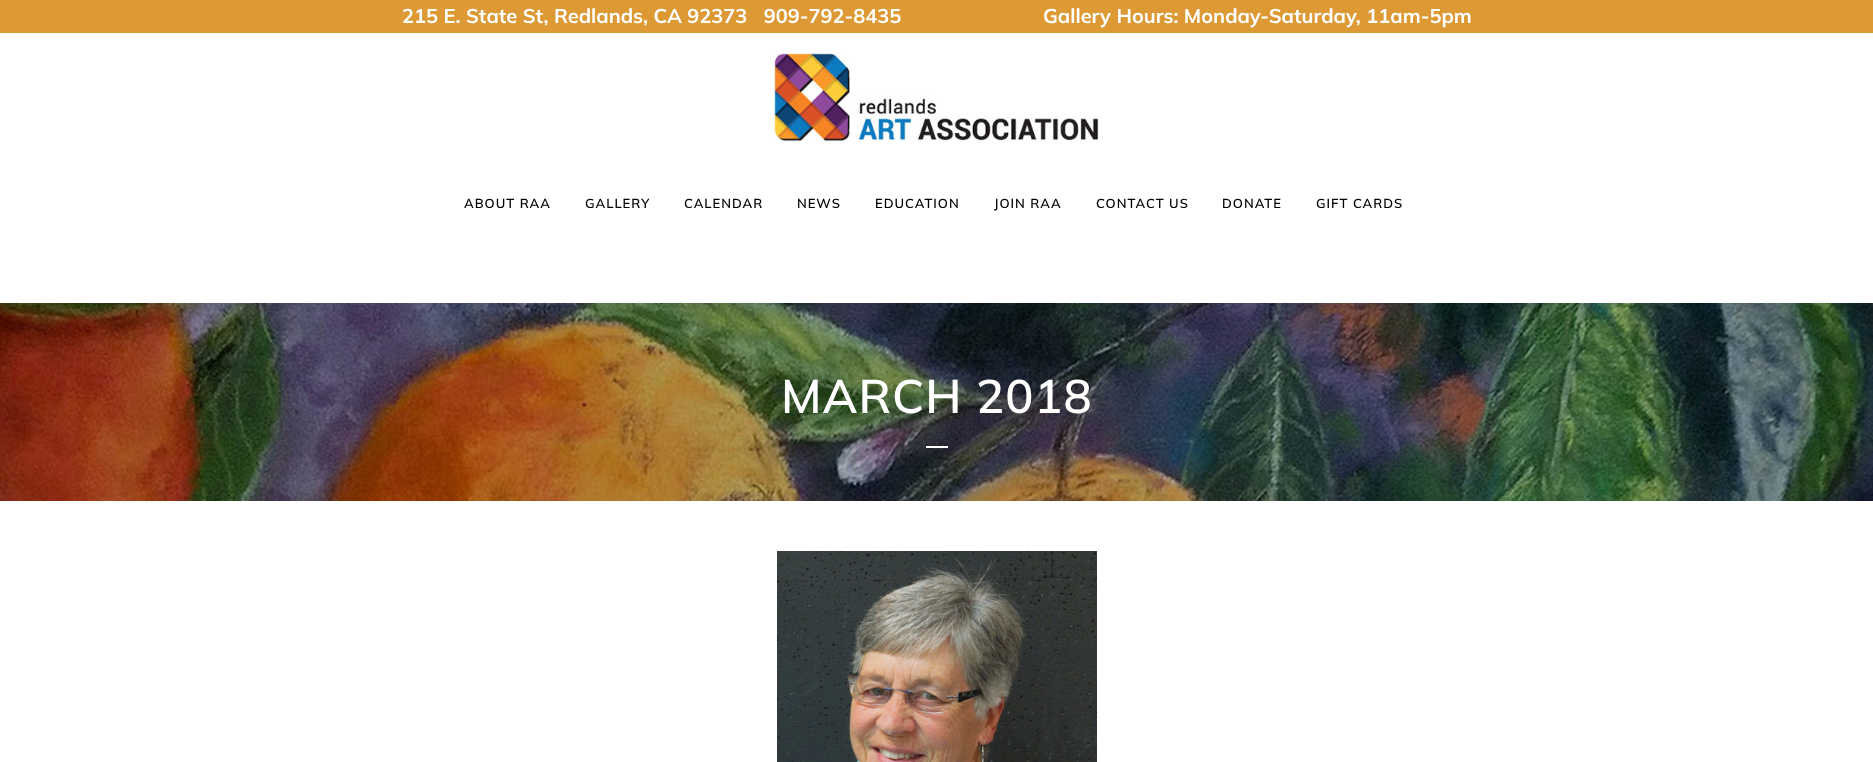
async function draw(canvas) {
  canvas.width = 1873;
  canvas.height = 762;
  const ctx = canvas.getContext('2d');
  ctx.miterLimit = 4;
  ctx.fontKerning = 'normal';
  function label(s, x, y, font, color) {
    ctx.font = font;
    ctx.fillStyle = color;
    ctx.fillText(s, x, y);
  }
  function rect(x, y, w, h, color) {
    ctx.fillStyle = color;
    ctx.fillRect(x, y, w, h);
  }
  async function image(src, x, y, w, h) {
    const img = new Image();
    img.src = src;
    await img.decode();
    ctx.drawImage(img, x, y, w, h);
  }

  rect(0, 0, 1873, 762, '#fff');
  rect(0, 0, 1873, 33, '#d93');
  label('215 E. State St, Redlands, CA 92373   909-792-8435', 402, 23, 'bold 20px Mulish', '#fff');
  label('Gallery Hours: Monday-Saturday, 11am-5pm', 1043, 23, 'bold 20px Mulish', '#fff');
  await image('assets/img1.png', 773, 53, 326, 89);
  ctx.letterSpacing = '1px';
  label('ABOUT RAA', 464, 208, '600 13px Mulish', '#000');
  label('GALLERY', 585, 208, '600 13px Mulish', '#000');
  label('CALENDAR', 684, 208, '600 13px Mulish', '#000');
  label('NEWS', 797, 208, '600 13px Mulish', '#000');
  label('EDUCATION', 875, 208, '600 13px Mulish', '#000');
  label('JOIN RAA', 994, 208, '600 13px Mulish', '#000');
  label('CONTACT US', 1096, 208, '600 13px Mulish', '#000');
  label('DONATE', 1222, 208, '600 13px Mulish', '#000');
  label('GIFT CARDS', 1316, 208, '600 13px Mulish', '#000');
  await image('assets/img2.png', 0, 303, 1873, 198);
  label('MARCH 2018', 781, 413, '600 47px Mulish', '#fff');
  rect(926, 446, 22, 2, '#fff');
  await image('assets/img3.png', 777, 551, 320, 211);
}

draw(document.querySelector('canvas'));
